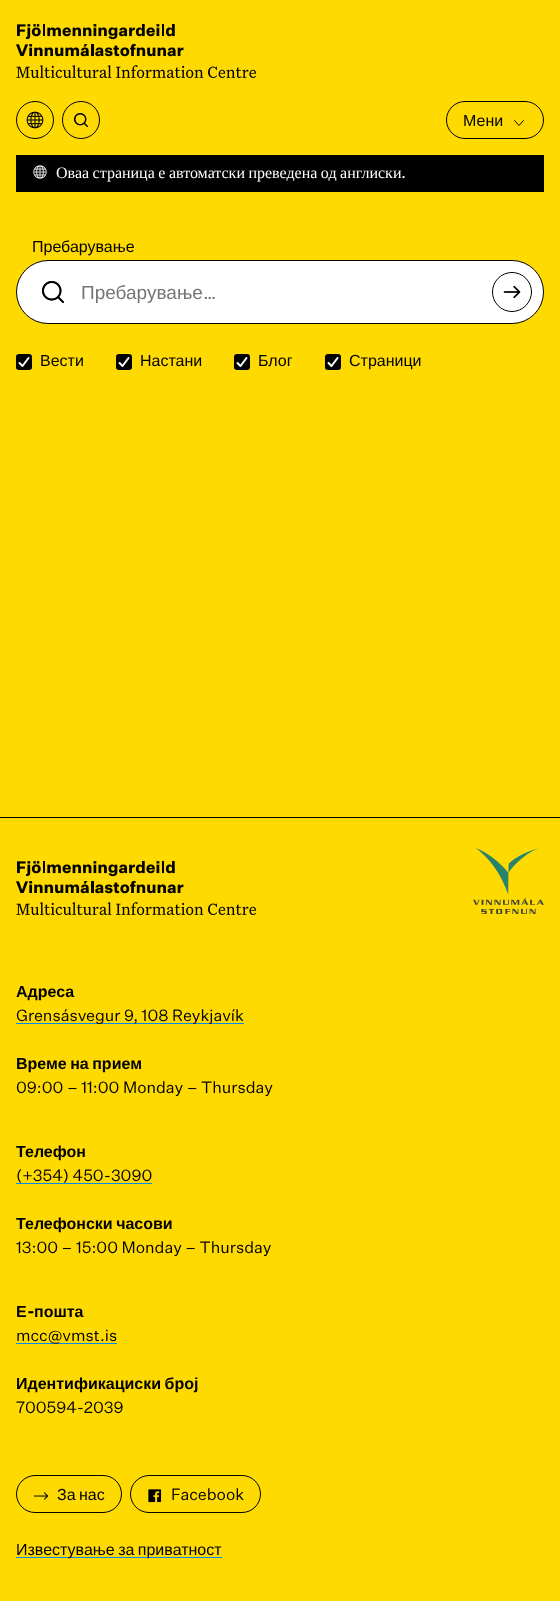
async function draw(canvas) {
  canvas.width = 560;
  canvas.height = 1601;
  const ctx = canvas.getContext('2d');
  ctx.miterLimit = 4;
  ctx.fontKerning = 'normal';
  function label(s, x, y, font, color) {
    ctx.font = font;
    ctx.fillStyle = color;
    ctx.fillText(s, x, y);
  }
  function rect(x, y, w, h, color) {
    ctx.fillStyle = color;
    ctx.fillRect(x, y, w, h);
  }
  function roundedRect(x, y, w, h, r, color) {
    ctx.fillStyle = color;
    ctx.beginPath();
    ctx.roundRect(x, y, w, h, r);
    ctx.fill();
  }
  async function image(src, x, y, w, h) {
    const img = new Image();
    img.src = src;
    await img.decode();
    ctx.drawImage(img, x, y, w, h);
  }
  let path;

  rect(0, 0, 560, 1601, '#ffda00');
  rect(16, 155, 528, 37, '#000');
  await image('assets/img1.png', 16, 24, 240, 54);
  ctx.beginPath();
  ctx.arc(35, 120, 18.5, 0, 2 * Math.PI);
  ctx.strokeStyle = '#000';
  ctx.stroke();
  await image('assets/img2.png', 26, 111, 18, 18);
  ctx.beginPath();
  ctx.arc(81, 120, 18.5, 0, 2 * Math.PI);
  ctx.stroke();
  await image('assets/img3.png', 74, 113, 14, 14);
  ctx.beginPath();
  ctx.roundRect(446.5, 101.5, 97, 37, 18.5);
  ctx.stroke();
  label('Мени', 463, 126, '16px Liberation Sans', '#000');
  path = new Path2D('M514.5 120.5L519 125.5L523.5 120.5');
  ctx.lineCap = 'round';
  ctx.lineJoin = 'round';
  ctx.stroke(path);
  await image('assets/img4.png', 33, 165, 14, 14);
  ctx.wordSpacing = '-0.5px';
  label('Оваа страница е автоматски преведена од англиски', 56, 178, '16px Liberation Serif', '#fff');
  ctx.wordSpacing = '0px';
  label('.', 401, 178, '16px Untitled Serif', '#fff');
  label('Пребарување', 32, 252, '16px Liberation Sans', '#000');
  ctx.fillStyle = '#fff';
  ctx.beginPath();
  ctx.roundRect(16.5, 260.5, 527, 63, 31.5);
  ctx.fill();
  ctx.lineJoin = 'miter';
  ctx.stroke();
  await image('assets/img5.png', 42, 281, 22, 22);
  label('Пребарување', 81, 299, '19px Liberation Sans', '#757575');
  label('…', 203, 299, '19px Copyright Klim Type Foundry', '#757575');
  ctx.beginPath();
  ctx.arc(512, 292, 19.5, 0, 2 * Math.PI);
  ctx.stroke();
  await image('assets/img6.png', 503, 285, 18, 14);
  roundedRect(16, 354, 16, 16, 3, '#000');
  path = new Path2D('M19.5 363L22.5 366L28.5 358');
  ctx.strokeStyle = '#fff';
  ctx.lineWidth = 2;
  ctx.lineJoin = 'round';
  ctx.stroke(path);
  label('Вести', 40, 366, '16px Liberation Sans', '#000');
  roundedRect(116, 354, 16, 16, 3, '#000');
  path = new Path2D('M119.5 363L122.5 366L128.5 358');
  ctx.stroke(path);
  label('Настани', 140, 366, '16px Liberation Sans', '#000');
  roundedRect(234, 354, 16, 16, 3, '#000');
  path = new Path2D('M237.5 363L240.5 366L246.5 358');
  ctx.stroke(path);
  label('Блог', 258, 366, '16px Liberation Sans', '#000');
  roundedRect(325, 354, 16, 16, 3, '#000');
  path = new Path2D('M328.5 363L331.5 366L337.5 358');
  ctx.stroke(path);
  label('Страници', 349, 366, '16px Liberation Sans', '#000');
  rect(0, 817, 560, 1, '#000');
  await image('assets/img1.png', 16, 861, 240, 54);
  label('Адреса', 16, 997, 'bold 16px Liberation Sans', '#000');
  rect(16, 1023, 228, 1, '#008cf2');
  label('Grensásvegur 9, 108 Reykjavík', 16, 1021, '16px Copyright Klim Type Foundry', '#000');
  ctx.wordSpacing = '-1px';
  label('Време на прием', 16, 1069, 'bold 16px Liberation Sans', '#000');
  ctx.wordSpacing = '0px';
  label('09:00 – 11:00 Monday – Thursday', 16, 1093, '16px Copyright Klim Type Foundry', '#000');
  label('Телефон', 16, 1157, 'bold 16px Liberation Sans', '#000');
  label('(+354) 450-3090', 16, 1181, '16px Copyright Klim Type Foundry', '#000');
  rect(16, 1183, 136, 1, '#008cf2');
  ctx.wordSpacing = '-1px';
  label('Телефонски часови', 16, 1229, 'bold 16px Liberation Sans', '#000');
  ctx.wordSpacing = '0px';
  label('13:00 – 15:00 Monday – Thursday', 16, 1253, '16px Copyright Klim Type Foundry', '#000');
  label('Е', 16, 1317, 'bold 16px Liberation Sans', '#000');
  label('-', 27, 1317, 'bold 16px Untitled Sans', '#000');
  label('пошта', 34, 1317, 'bold 16px Liberation Sans', '#000');
  rect(16, 1343, 101, 1, '#008cf2');
  label('mcc@vmst.is', 16, 1341, '16px Copyright Klim Type Foundry', '#000');
  ctx.wordSpacing = '-1px';
  label('Идентификациски број', 16, 1389, 'bold 16px Liberation Sans', '#000');
  ctx.wordSpacing = '0px';
  label('700594-2039', 16, 1413, '16px Copyright Klim Type Foundry', '#000');
  ctx.beginPath();
  ctx.roundRect(16.5, 1475.5, 105, 37, 18.5);
  ctx.strokeStyle = '#000';
  ctx.lineWidth = 1;
  ctx.lineJoin = 'miter';
  ctx.stroke();
  await image('assets/img7.png', 33, 1492, 16, 8);
  ctx.wordSpacing = '-1px';
  label('За нас', 57, 1500, '16px Liberation Sans', '#000');
  ctx.beginPath();
  ctx.roundRect(130.5, 1475.5, 130, 37, 18.5);
  ctx.stroke();
  await image('assets/img8.png', 148, 1489, 14, 14);
  ctx.wordSpacing = '0px';
  label('Facebook', 171, 1500, '16px Copyright Klim Type Foundry', '#000');
  await image('assets/img9.png', 473, 848, 71, 66);
  rect(16, 1557, 206, 1, '#008cf2');
  ctx.wordSpacing = '-1px';
  label('Известување за приватност', 16, 1555, '16px Liberation Sans', '#000');
}

draw(document.querySelector('canvas'));
